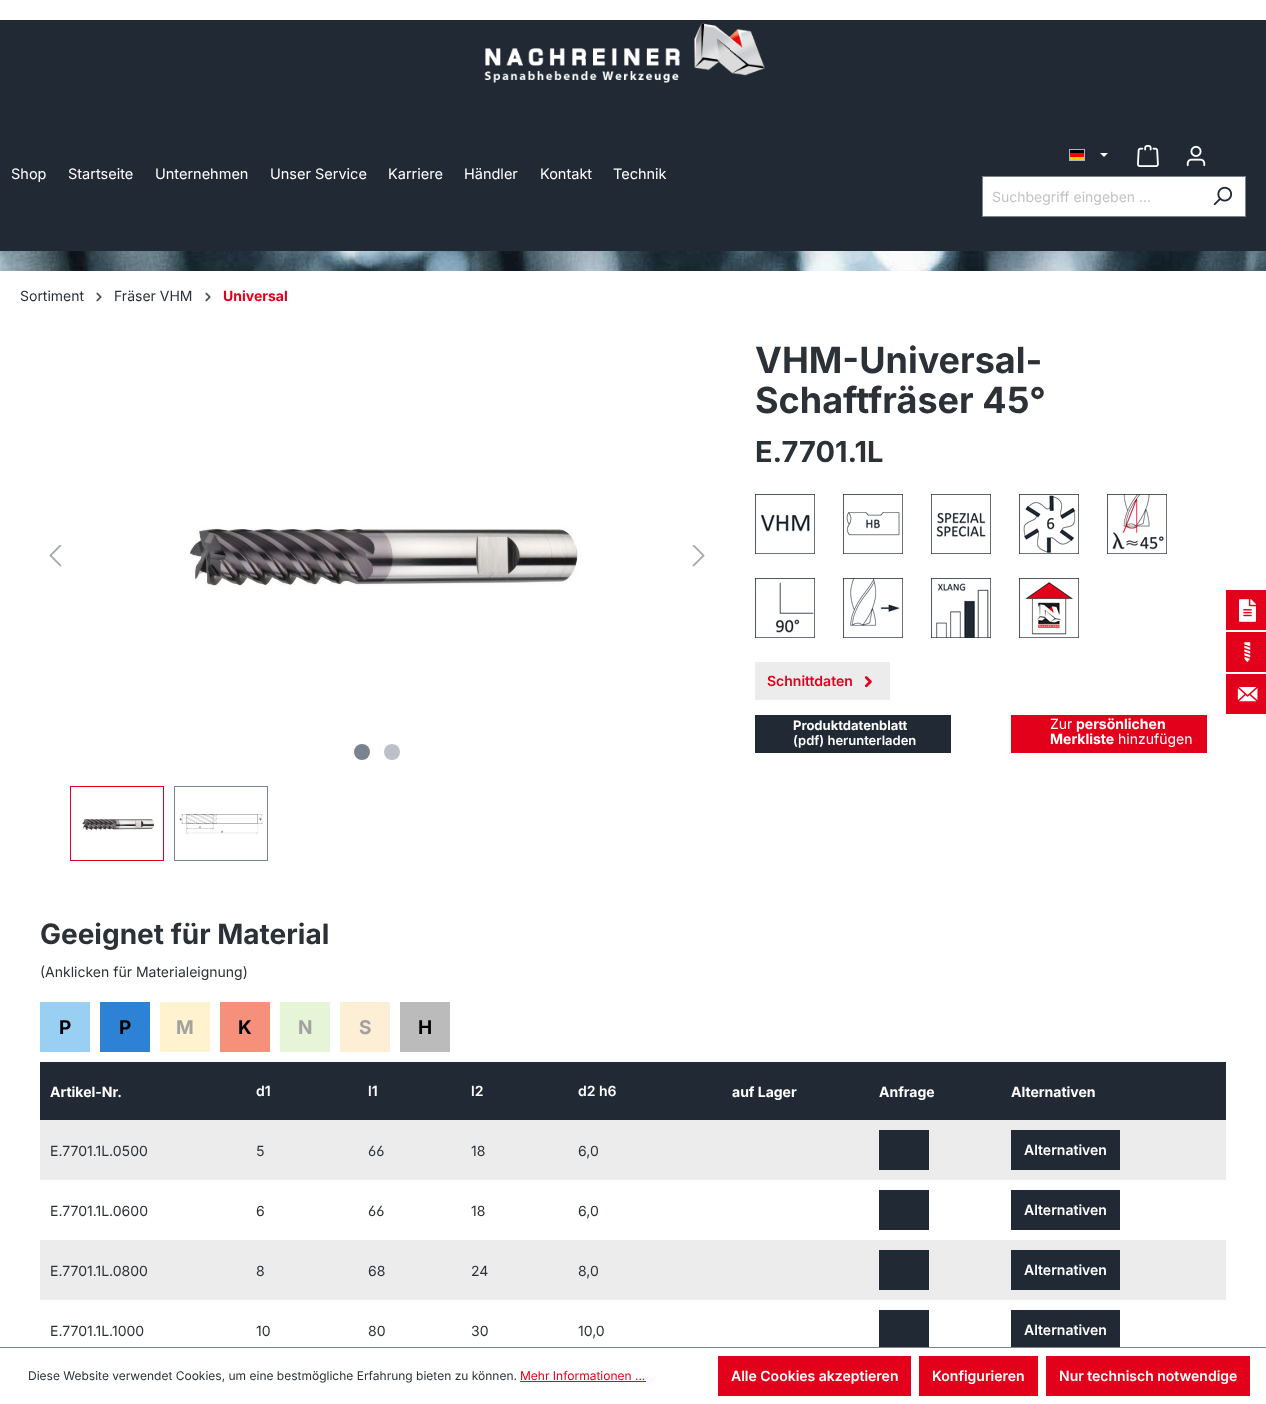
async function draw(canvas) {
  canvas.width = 1266;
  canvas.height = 1404;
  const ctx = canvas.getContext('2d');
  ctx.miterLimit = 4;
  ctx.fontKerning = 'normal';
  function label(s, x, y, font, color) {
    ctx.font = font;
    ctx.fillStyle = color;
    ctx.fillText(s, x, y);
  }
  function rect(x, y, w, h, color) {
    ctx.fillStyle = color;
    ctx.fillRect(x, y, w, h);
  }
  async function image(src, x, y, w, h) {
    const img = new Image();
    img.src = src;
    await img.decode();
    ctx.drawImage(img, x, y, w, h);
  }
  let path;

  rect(0, 0, 1266, 1404, '#fff');
  await image('assets/img1.png', 0, 251, 1266, 20);
  rect(0, 20, 1266, 231, '#212934');
  await image('assets/img2.png', 484, 23, 281, 60);
  label('Shop', 11, 179, '14.5px Inter', '#fff');
  label('Startseite', 68, 179, '14.5px Inter', '#fff');
  label('Unternehmen', 155, 179, '14.5px Inter', '#fff');
  label('Unser Service', 270, 179, '14.5px Inter', '#fff');
  label('Karriere', 388, 179, '14.5px Inter', '#fff');
  label('Händler', 464, 179, '14.5px Inter', '#fff');
  label('Kontakt', 540, 179, '14.5px Inter', '#fff');
  label('Technik', 613, 179, '14.5px Inter', '#fff');
  rect(1070, 150, 14, 3, '#000');
  rect(1070, 153, 14, 4, '#f00');
  rect(1070, 157, 14, 3, '#fc0');
  ctx.strokeStyle = '#adb5bd';
  ctx.strokeRect(1069.5, 149.5, 15, 11);
  ctx.fillStyle = '#fff';
  path = new Path2D('M1100 153H1108L1104 157Z');
  ctx.fill(path);
  await image('assets/img3.png', 1137, 145, 22, 22);
  await image('assets/img4.png', 1186, 145, 20, 22);
  rect(983, 177, 262, 39, '#fff');
  rect(982, 176, 264, 1, '#798490');
  rect(982, 216, 218, 1, '#798490');
  rect(982, 176, 1, 41, '#798490');
  label('Suchbegriff eingeben ...', 992, 202, '14px Inter', '#c3c3c3');
  rect(1245, 176, 1, 41, '#798490');
  rect(1199, 216, 47, 1, '#798490');
  await image('assets/img5.png', 1213, 186, 20, 20);
  label('Sortiment', 20, 301, '14px Inter', '#2b3136');
  await image('assets/img6.png', 96, 292, 6, 10);
  label('Fräser VHM', 114, 301, '14px Inter', '#2b3136');
  await image('assets/img6.png', 205, 292, 6, 10);
  label('Universal', 223, 301, 'bold 14px Inter', '#e2001a');
  await image('assets/img7.png', 189, 527, 389, 59);
  await image('assets/img8.png', 49, 545, 13, 22);
  await image('assets/img9.png', 692, 545, 13, 22);
  ctx.fillStyle = '#798490';
  ctx.beginPath();
  ctx.arc(362, 752, 8, 0, 2 * Math.PI);
  ctx.fill();
  ctx.fillStyle = '#bcc1c7';
  ctx.beginPath();
  ctx.arc(392, 752, 8, 0, 2 * Math.PI);
  ctx.fill();
  ctx.strokeStyle = '#e2001a';
  ctx.strokeRect(70.5, 786.5, 93, 74);
  await image('assets/img10.png', 82, 819, 73, 11);
  ctx.strokeStyle = '#798490';
  ctx.strokeRect(174.5, 786.5, 93, 74);
  await image('assets/img11.png', 179, 814, 84, 21);
  label('VHM-Universal-', 755, 373, 'bold 36px Inter', '#2b3136');
  label('Schaftfräser 45°', 755, 413, 'bold 36px Inter', '#2b3136');
  label('E.7701.1L', 755, 462, 'bold 29px Inter', '#2b3136');
  await image('assets/img12.png', 755, 494, 60, 60);
  await image('assets/img13.png', 843, 494, 60, 60);
  await image('assets/img14.png', 931, 494, 60, 60);
  await image('assets/img15.png', 1019, 494, 60, 60);
  await image('assets/img16.png', 1107, 494, 60, 60);
  await image('assets/img17.png', 755, 578, 60, 60);
  await image('assets/img18.png', 843, 578, 60, 60);
  await image('assets/img19.png', 931, 578, 60, 60);
  await image('assets/img20.png', 1019, 578, 60, 60);
  rect(755, 662, 135, 38, '#ececed');
  label('Schnittdaten', 767, 686, '600 14px Inter', '#e2001a');
  await image('assets/img21.png', 865, 676, 7, 12);
  rect(755, 715, 196, 38, '#212934');
  label('Produktdatenblatt', 793, 730, 'bold 13px Inter', '#fff');
  label('(pdf) herunterladen', 793, 745, '600 13px Inter', '#fff');
  rect(1011, 715, 196, 38, '#e2001a');
  label('Zur', 1050, 729, '14px Inter', '#fff');
  label('persönlichen', 1076, 729, 'bold 14px Inter', '#fff');
  label('Merkliste', 1050, 744, 'bold 14px Inter', '#fff');
  label('hinzufügen', 1118, 744, '14px Inter', '#fff');
  label('Geeignet für Material', 40, 944, 'bold 28px Inter', '#2b3136');
  label('(Anklicken für Materialeignung)', 40, 977, '14px Inter', '#2b3136');
  rect(40, 1002, 50, 50, '#98cff3');
  label('P', 59, 1034, 'bold 19px Inter', '#000');
  rect(100, 1002, 50, 50, '#2e82d5');
  label('P', 119, 1034, 'bold 19px Inter', '#000');
  rect(160, 1002, 50, 50, '#fef2cf');
  label('M', 176, 1034, 'bold 19px Inter', '#a1a1a1');
  rect(220, 1002, 50, 50, '#f7907b');
  label('K', 238, 1034, 'bold 19px Inter', '#000');
  rect(280, 1002, 50, 50, '#e6f4d7');
  label('N', 298, 1034, 'bold 19px Inter', '#a1a1a1');
  rect(340, 1002, 50, 50, '#fdeed6');
  label('S', 359, 1034, 'bold 19px Inter', '#a1a1a1');
  rect(400, 1002, 50, 50, '#bbb');
  label('H', 418, 1034, 'bold 19px Inter', '#000');
  rect(40, 1062, 1186, 58, '#212934');
  label('Artikel-Nr.', 50, 1097, 'bold 14px Inter', '#fff');
  label('d1', 256, 1096, '600 14px Inter', '#fff');
  label('l1', 368, 1096, '600 14px Inter', '#fff');
  label('l2', 471, 1096, '600 14px Inter', '#fff');
  label('d2 h6', 578, 1096, '600 14px Inter', '#fff');
  label('auf Lager', 732, 1097, 'bold 14px Inter', '#fff');
  label('Anfrage', 879, 1097, 'bold 14px Inter', '#fff');
  label('Alternativen', 1011, 1097, 'bold 14px Inter', '#fff');
  rect(40, 1120, 1186, 60, '#ececed');
  label('E.7701.1L.0500', 50, 1156, '14px Inter', '#2b3136');
  label('5', 256, 1156, '14px Inter', '#2b3136');
  label('66', 368, 1156, '14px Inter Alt', '#2b3136');
  label('18', 471, 1156, '14px Inter', '#2b3136');
  label('6,0', 578, 1156, '14px Inter', '#2b3136');
  rect(879, 1130, 50, 40, '#212934');
  rect(1011, 1130, 109, 40, '#212934');
  label('Alternativen', 1024, 1155, '600 14px Inter', '#fff');
  label('E.7701.1L.0600', 50, 1216, '14px Inter', '#2b3136');
  label('6', 256, 1216, '14px Inter', '#2b3136');
  label('66', 368, 1216, '14px Inter Alt', '#2b3136');
  label('18', 471, 1216, '14px Inter', '#2b3136');
  label('6,0', 578, 1216, '14px Inter', '#2b3136');
  rect(879, 1190, 50, 40, '#212934');
  rect(1011, 1190, 109, 40, '#212934');
  label('Alternativen', 1024, 1215, '600 14px Inter', '#fff');
  rect(40, 1240, 1186, 60, '#ececed');
  label('E.7701.1L.0800', 50, 1276, '14px Inter', '#2b3136');
  label('8', 256, 1276, '14px Inter', '#2b3136');
  label('68', 368, 1276, '14px Inter', '#2b3136');
  label('24', 471, 1276, '14px Inter', '#2b3136');
  label('8,0', 578, 1276, '14px Inter', '#2b3136');
  rect(879, 1250, 50, 40, '#212934');
  rect(1011, 1250, 109, 40, '#212934');
  label('Alternativen', 1024, 1275, '600 14px Inter', '#fff');
  label('E.7701.1L.1000', 50, 1336, '14px Inter', '#2b3136');
  label('10', 256, 1336, '14px Inter', '#2b3136');
  label('80', 368, 1336, '14px Inter', '#2b3136');
  label('30', 471, 1336, '14px Inter', '#2b3136');
  label('10,0', 578, 1336, '14px Inter', '#2b3136');
  rect(879, 1310, 50, 37, '#212934');
  rect(1011, 1310, 109, 37, '#212934');
  label('Alternativen', 1024, 1335, '600 14px Inter', '#fff');
  rect(1226, 590, 40, 40, '#e2001a');
  await image('assets/img22.png', 1239, 599, 17, 23);
  rect(1226, 632, 40, 40, '#e2001a');
  await image('assets/img23.png', 1244, 642, 7, 20);
  rect(1226, 674, 40, 40, '#e2001a');
  await image('assets/img24.png', 1237, 687, 21, 15);
  rect(0, 1347, 1266, 1, '#798490');
  label('Diese Website verwendet Cookies, um eine bestmögliche Erfahrung bieten zu können.', 28, 1380, '12px Inter', '#2b3136');
  label('Mehr Informationen ...', 520, 1380, '12px Inter', '#e2001a');
  rect(520, 1381, 126, 1, '#e2001a');
  rect(718, 1356, 193, 40, '#e2001a');
  label('Alle Cookies akzeptieren', 731, 1381, '600 14px Inter', '#fff');
  rect(919, 1356, 119, 40, '#e2001a');
  label('Konfigurieren', 932, 1381, '600 14px Inter', '#fff');
  rect(1046, 1356, 204, 40, '#e2001a');
  label('Nur technisch notwendige', 1059, 1381, '600 14px Inter', '#fff');
}

draw(document.querySelector('canvas'));
